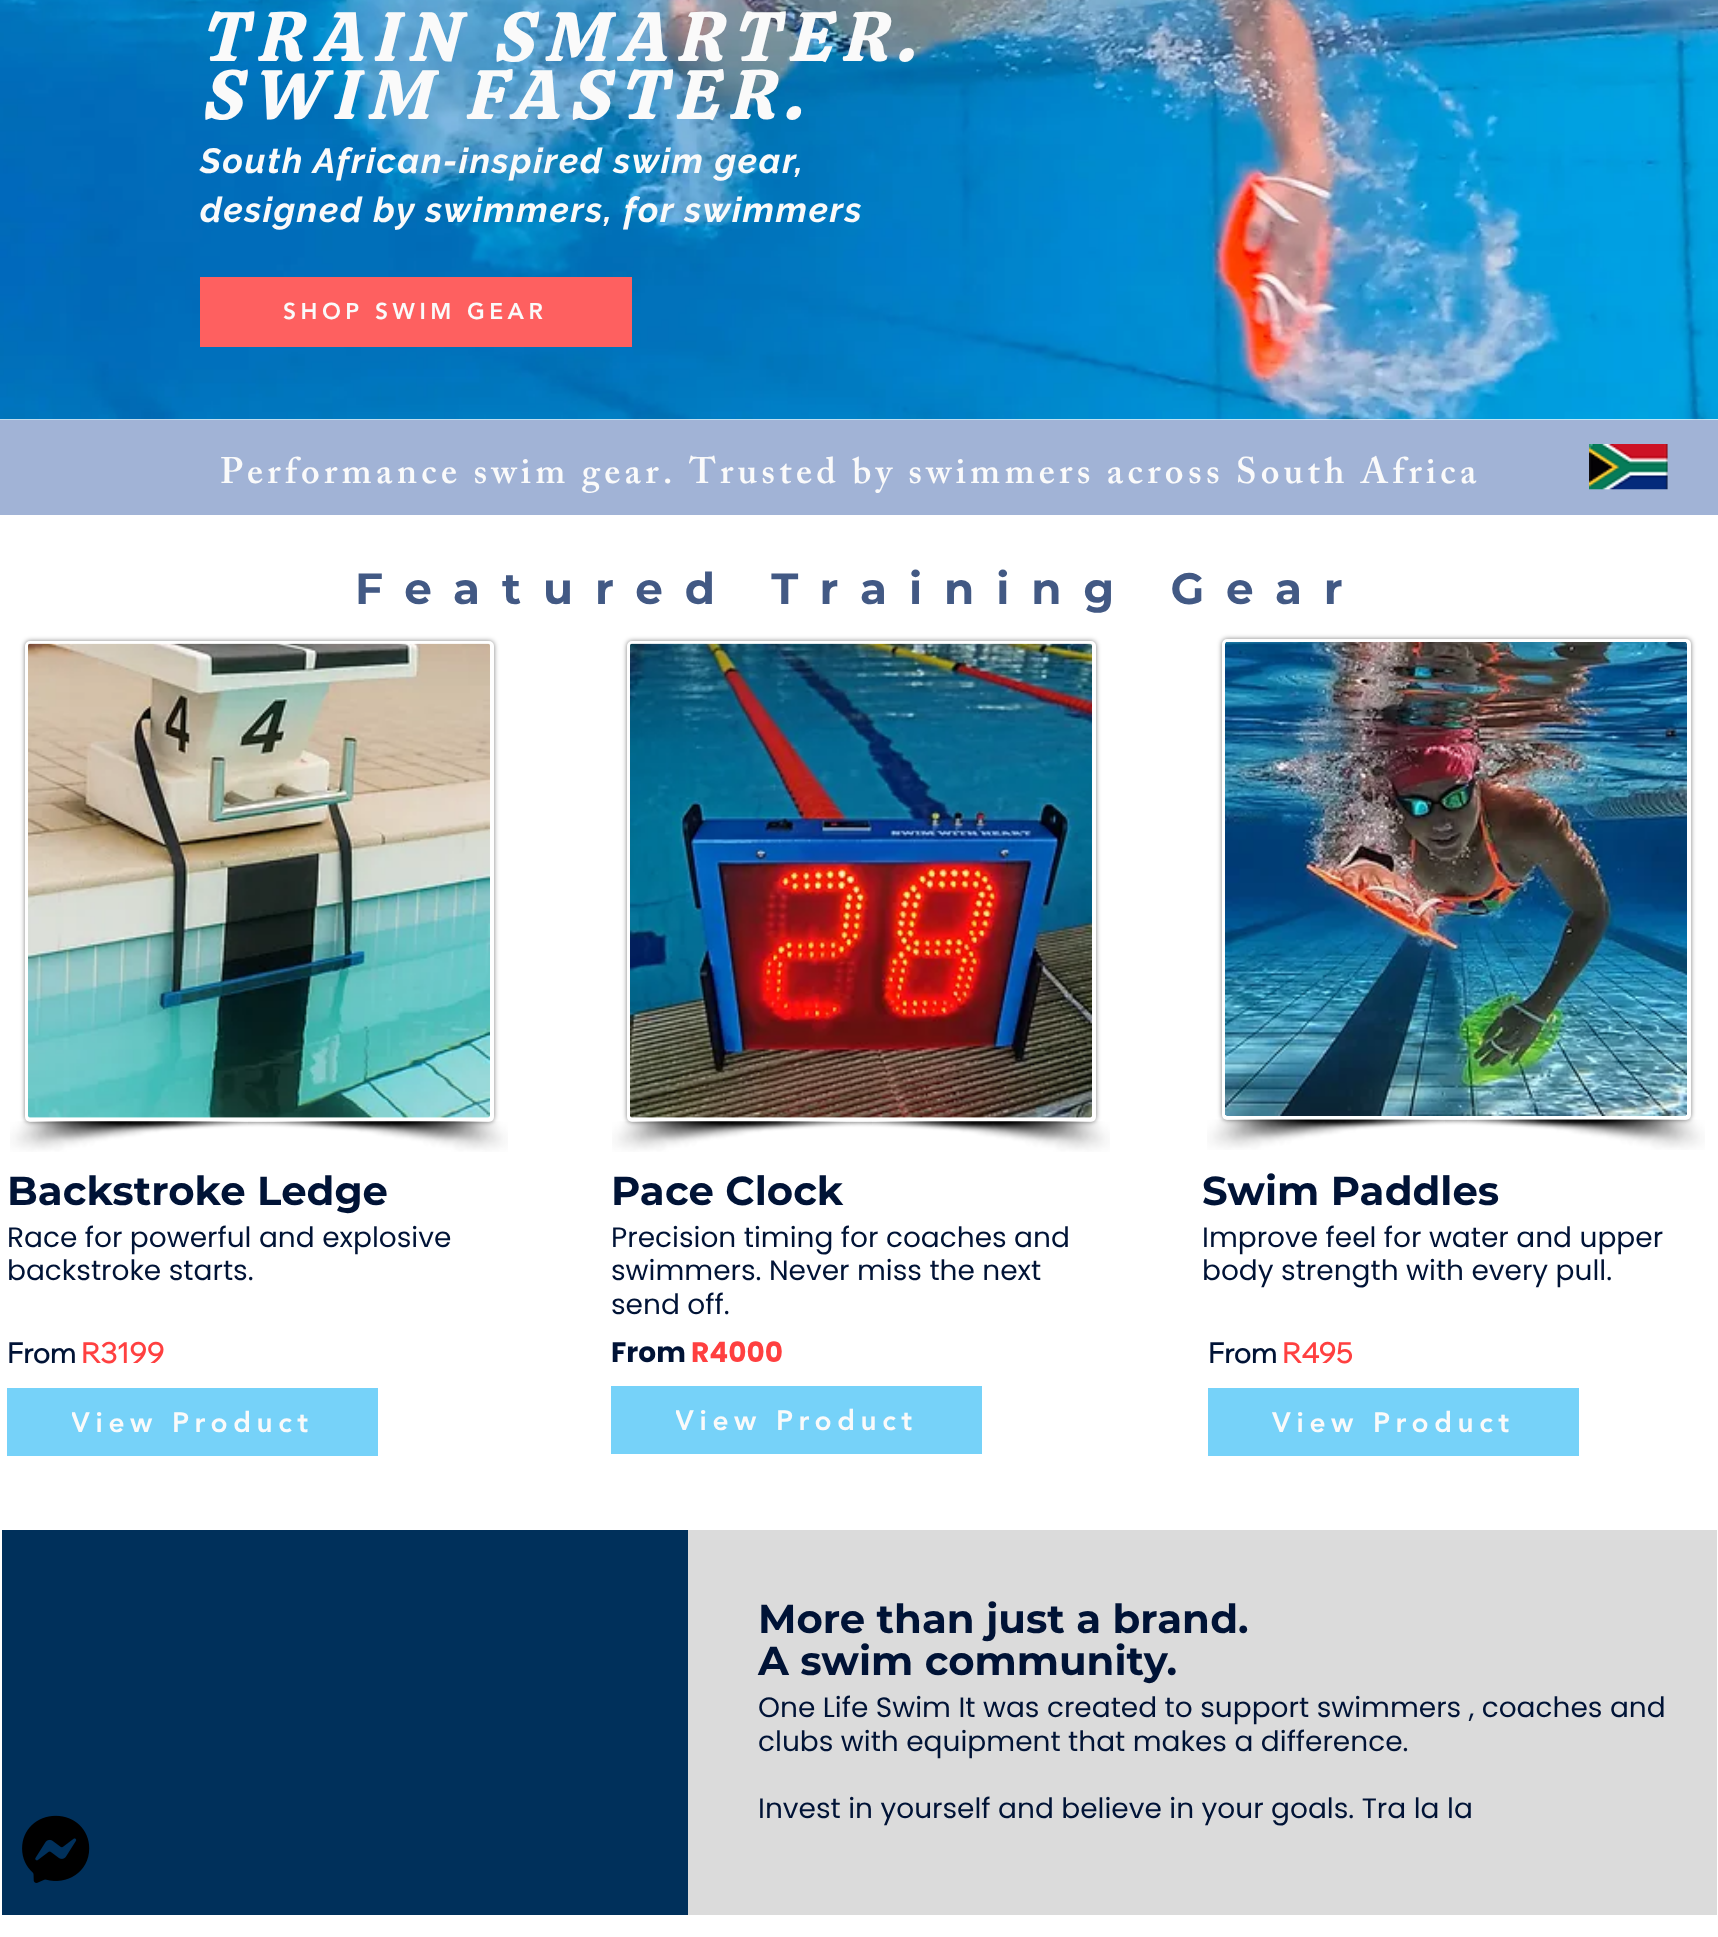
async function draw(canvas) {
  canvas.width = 1718;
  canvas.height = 1937;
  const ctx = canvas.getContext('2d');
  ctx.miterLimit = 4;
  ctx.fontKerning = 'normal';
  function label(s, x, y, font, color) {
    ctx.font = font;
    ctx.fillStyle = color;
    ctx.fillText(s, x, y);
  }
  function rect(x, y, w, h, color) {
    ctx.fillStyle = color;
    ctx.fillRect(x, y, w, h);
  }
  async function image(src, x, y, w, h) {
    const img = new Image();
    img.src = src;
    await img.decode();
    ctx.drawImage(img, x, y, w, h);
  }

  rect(0, 0, 1718, 1937, '#fff');
  await image('assets/img1.png', 0, 0, 1718, 420);
  ctx.letterSpacing = '10.5px';
  label('TRAIN SMARTER.', 200, 61, 'italic 70px Calistoga', '#fafafa');
  label('SWIM FASTER.', 200, 119, 'italic 70px Calistoga', '#fafafa');
  ctx.letterSpacing = '1.75px';
  label('South African-inspired swim gear,', 200, 173, 'italic bold 35px Raleway', '#fafafa');
  label('designed by swimmers, for swimmers', 200, 222, 'italic bold 35px Raleway', '#fafafa');
  rect(200, 277, 432, 70, '#fe6060');
  ctx.letterSpacing = '4.5px';
  label('SHOP SWIM GEAR', 283, 319, '900 22.75px "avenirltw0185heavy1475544"', '#fafafa');
  rect(0, 420, 1718, 95, '#a1b3d6');
  ctx.letterSpacing = '4.4px';
  label('Performance swim gear. Trusted by swimmers across South Africa', 220, 483, '600 36.75px "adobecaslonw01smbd"', '#fafafa');
  await image('assets/img2.png', 1589, 444, 79, 46);
  ctx.letterSpacing = '21.9px';
  label('Featured Training Gear', 355, 604, 'bold 43.75px Montserrat', '#425984');
  ctx.fillStyle = '#00000080';
  ctx.filter = 'blur(2.5px)';
  ctx.beginPath();
  ctx.roundRect(25, 641, 469, 481, 5);
  ctx.fill();
  ctx.filter = 'none';
  ctx.fillStyle = '#fff';
  ctx.beginPath();
  ctx.roundRect(27, 643, 465, 477, 3);
  ctx.fill();
  ctx.strokeStyle = '#fff';
  ctx.lineWidth = 4;
  ctx.stroke();
  await image('assets/img3.png', 28, 643, 462, 475);
  await image('assets/img4.png', 10, 1121, 260, 31);
  await image('assets/img5.png', 248, 1121, 260, 31);
  ctx.letterSpacing = '0px';
  label('Backstroke Ledge', 7, 1205, 'bold 40.25px Montserrat', '#001336');
  label('Race for powerful and explosive', 7, 1247, '28px Poppins', '#001336');
  label('backstroke starts.', 7, 1280, '28px Poppins', '#001336');
  label('From', 7, 1363, 'bold 28px Wix Madefor Display', '#001336');
  label('R3199', 81, 1363, 'bold 28px Wix Madefor Display', '#ff4040');
  rect(7, 1388, 371, 68, '#76d2f9');
  ctx.save();
  ctx.beginPath();
  ctx.rect(72, 1405, 241, 34);
  ctx.clip();
  ctx.letterSpacing = '5.6px';
  label('View Product', 71, 1432, '900 28px "avenirltw0185heavy1475544"', '#fafafa');
  ctx.restore();
  ctx.fillStyle = '#00000080';
  ctx.filter = 'blur(2.5px)';
  ctx.beginPath();
  ctx.roundRect(627, 641, 469, 481, 5);
  ctx.fill();
  ctx.filter = 'none';
  ctx.fillStyle = '#fff';
  ctx.beginPath();
  ctx.roundRect(629, 643, 465, 477, 3);
  ctx.fill();
  ctx.stroke();
  await image('assets/img6.png', 630, 643, 462, 475);
  await image('assets/img4.png', 612, 1121, 260, 31);
  await image('assets/img5.png', 850, 1121, 260, 31);
  label('Pace Clock', 611, 1205, 'bold 40.25px Montserrat', '#001336');
  label('Precision timing for coaches and', 611, 1247, '28px Poppins', '#001336');
  label('swimmers. Never miss the next', 611, 1280, '28px Poppins', '#001336');
  label('send off.', 611, 1314, '28px Poppins', '#001336');
  label('From', 611, 1362, 'bold 28px Poppins', '#001336');
  label('R4000', 691, 1362, 'bold 28px Poppins', '#ff4040');
  rect(611, 1386, 371, 68, '#76d2f9');
  ctx.save();
  ctx.beginPath();
  ctx.rect(676, 1404, 241, 33);
  ctx.clip();
  ctx.letterSpacing = '5.6px';
  label('View Product', 675, 1430, '900 28px "avenirltw0185heavy1475544"', '#fafafa');
  ctx.restore();
  ctx.fillStyle = '#00000080';
  ctx.filter = 'blur(2.5px)';
  ctx.beginPath();
  ctx.roundRect(1222, 639, 469, 481, 5);
  ctx.fill();
  ctx.filter = 'none';
  ctx.fillStyle = '#fff';
  ctx.beginPath();
  ctx.roundRect(1224, 641, 465, 477, 3);
  ctx.fill();
  ctx.stroke();
  await image('assets/img7.png', 1225, 642, 462, 474);
  await image('assets/img8.png', 1207, 1119, 260, 31);
  await image('assets/img9.png', 1445, 1119, 260, 31);
  label('Swim Paddles', 1202, 1205, 'bold 40.25px Montserrat', '#001336');
  label('Improve feel for water and upper', 1202, 1247, '28px Poppins', '#001336');
  label('body strength with every pull.', 1202, 1280, '28px Poppins', '#001336');
  label('From', 1208, 1363, 'bold 28px Wix Madefor Display', '#001336');
  label('R495', 1282, 1363, 'bold 28px Wix Madefor Display', '#ff4040');
  rect(1208, 1388, 371, 68, '#76d2f9');
  ctx.letterSpacing = '5.6px';
  label('View Product', 1272, 1432, '900 28px "avenirltw0185heavy1475544"', '#fafafa');
  rect(2, 1530, 686, 385, '#00305b');
  rect(688, 1530, 1029, 385, '#dbdbdb');
  ctx.letterSpacing = '0px';
  label('More than just a brand.', 758, 1633, 'bold 40.25px Montserrat', '#001336');
  label('A swim community.', 758, 1675, 'bold 40.25px Montserrat', '#001336');
  label('One Life Swim It was created to support swimmers , coaches and', 758, 1717, '28px Poppins', '#001336');
  label('clubs with equipment that makes a difference.', 758, 1751, '28px Poppins', '#001336');
  label('Invest in yourself and believe in your goals. Tra la la', 758, 1818, '28px Poppins', '#001336');
  await image('assets/img10.png', 22, 1815, 68, 68);
}

draw(document.querySelector('canvas'));
